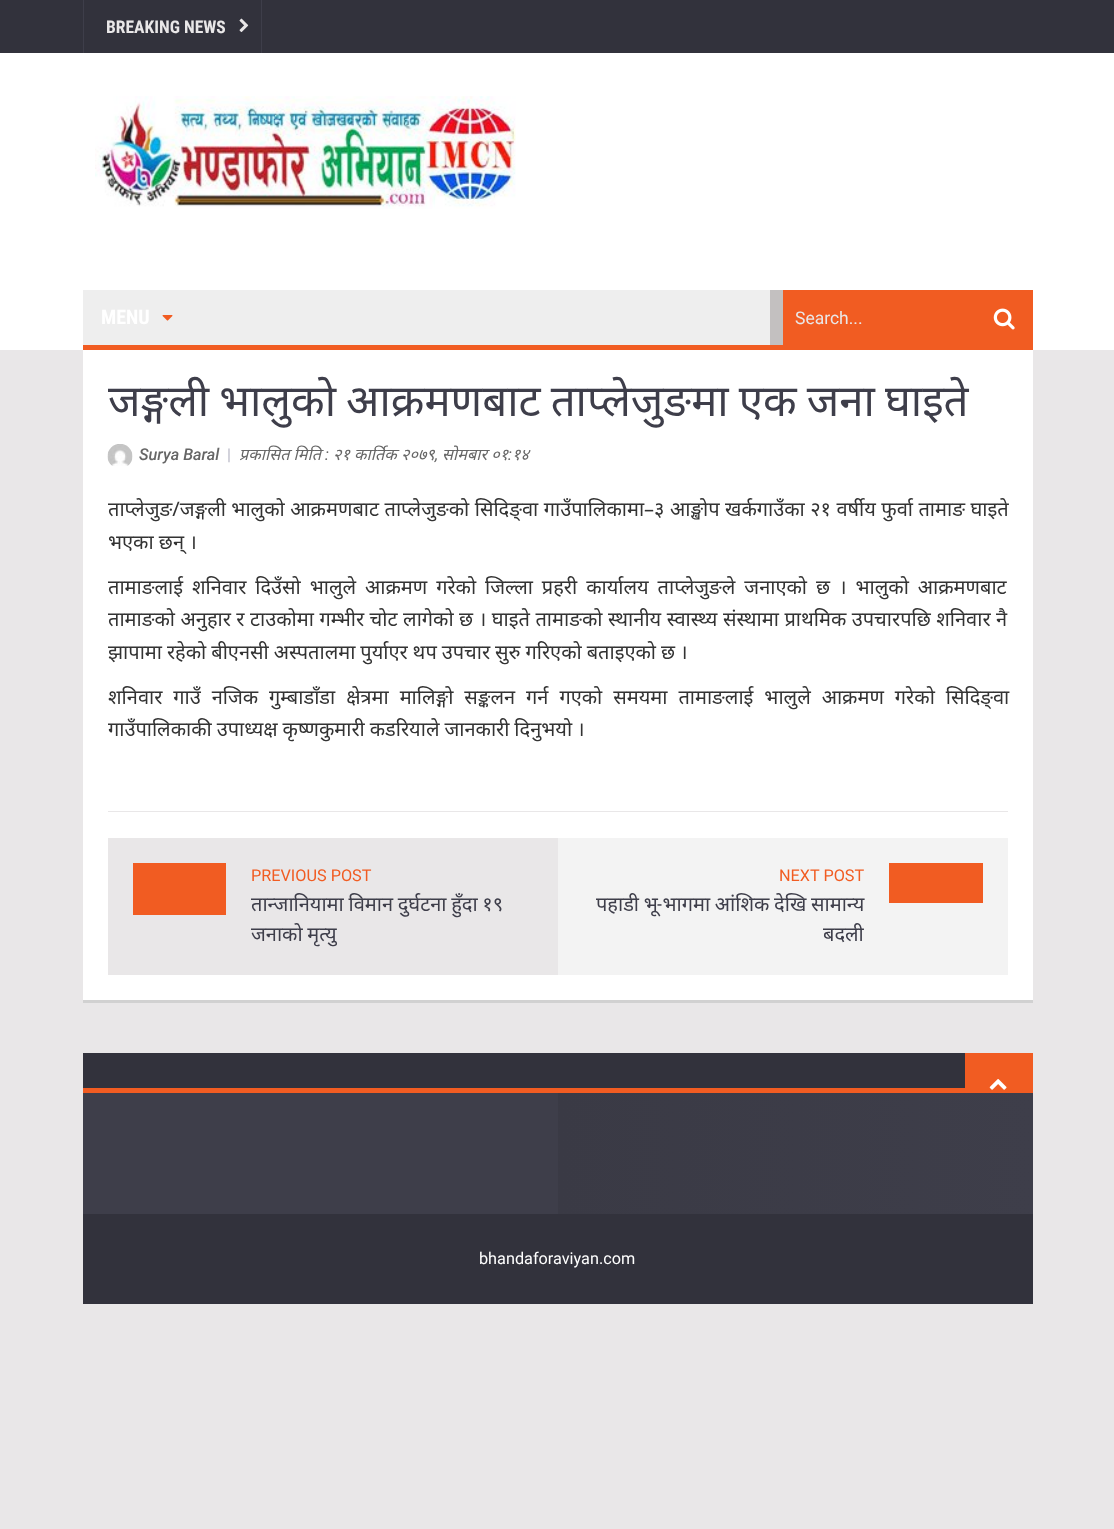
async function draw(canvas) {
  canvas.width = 1114;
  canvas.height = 1529;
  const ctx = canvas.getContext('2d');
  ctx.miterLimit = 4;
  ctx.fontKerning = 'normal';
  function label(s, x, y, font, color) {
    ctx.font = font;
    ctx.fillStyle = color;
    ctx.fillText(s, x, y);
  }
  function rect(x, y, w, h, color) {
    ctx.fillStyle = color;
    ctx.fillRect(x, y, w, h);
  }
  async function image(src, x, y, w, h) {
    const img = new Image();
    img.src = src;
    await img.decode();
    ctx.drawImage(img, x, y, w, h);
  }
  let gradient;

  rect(0, 0, 1114, 1529, '#e9e7e8');
  rect(0, 53, 1114, 297, '#fff');
  rect(0, 0, 1114, 53, '#32323c');
  rect(261, 0, 1, 53, '#3e3e4a');
  rect(83, 0, 1, 53, '#3e3e4a');
  label('BREAKING NEWS', 106, 33, 'bold 17.5px Roboto Condensed', '#e9e7e8');
  await image('assets/img1.png', 239, 18, 10, 15);
  await image('assets/img2.png', 95, 96, 421, 113);
  rect(83, 290, 687, 55, '#eee');
  rect(83, 345, 950, 5, '#f15c22');
  label('MENU', 101, 324, 'bold 20px Roboto Condensed', '#fff');
  await image('assets/img3.png', 162, 315, 11, 6);
  rect(783, 290, 250, 55, '#f15c22');
  rect(770, 290, 13, 55, '#c3c0c0');
  label('Search...', 795, 324, '17.5px Roboto', '#e9e7e8');
  await image('assets/img4.png', 993, 308, 22, 22);
  rect(83, 350, 950, 650, '#fff');
  rect(83, 1000, 950, 3, '#d1d1d1');
  ctx.wordSpacing = '-1.25px';
  label('जङ्गली भालुको आक्रमणबाट ताप्लेजुङमा एक जना घाइते', 108, 416, '43.75px Noto Sans', '#3e3e4a');
  await image('assets/img5.png', 107, 444, 26, 22);
  ctx.wordSpacing = '0px';
  label('Surya Baral', 139, 460, 'italic 500 16.25px Roboto', '#666');
  label('|', 227, 460, '16.25px Roboto', '#b8b8c6');
  label('प्रकासित मिति', 239, 460, 'italic 16.25px Noto Sans', '#666');
  label(':', 325, 460, 'italic 16.25px Roboto', '#666');
  label('२१ कार्तिक २०७९', 333, 460, 'italic 16.25px Noto Sans', '#666');
  label('सोमबार ०१', 442, 460, 'italic 16.25px Noto Sans', '#666');
  label(':', 508, 460, 'italic 16.25px Roboto', '#666');
  label('१४', 512, 460, 'italic 16.25px Noto Sans', '#666');
  label(',', 435, 460, 'italic 16.25px Roboto', '#666');
  ctx.wordSpacing = '0.25px';
  label('ताप्लेजुङ/जङ्गली भालुको आक्रमणबाट ताप्लेजुङको सिदिङ्वा गाउँपालिकामा–३ आङ्खोप खर्कगाउँका २१ वर्षीय फुर्वा तामाङ घाइते', 108, 516, '20px Noto Sans', '#333');
  ctx.wordSpacing = '0px';
  label('भएका छन् ।', 108, 549, '20px Noto Sans', '#333');
  ctx.wordSpacing = '3.75px';
  label('तामाङलाई शनिवार दिउँसो भालुले आक्रमण गरेको जिल्ला प्रहरी कार्यालय ताप्लेजुङले जनाएको छ । भालुको आक्रमणबाट', 108, 594, '20px Noto Sans', '#333');
  ctx.wordSpacing = '0.3px';
  label('तामाङको अनुहार र टाउकोमा गम्भीर चोट लागेको छ । घाइते तामाङको स्थानीय स्वास्थ्य संस्थामा प्राथमिक उपचारपछि शनिवार नै', 108, 626, '20px Noto Sans', '#333');
  ctx.wordSpacing = '-0.25px';
  label('झापामा रहेको बीएनसी अस्पतालमा पुर्याएर थप उपचार सुरु गरिएको बताइएको छ ।', 108, 659, '20px Noto Sans', '#333');
  ctx.wordSpacing = '5.75px';
  label('शनिवार गाउँ नजिक गुम्बाडाँडा क्षेत्रमा मालिङ्गो सङ्कलन गर्न गएको समयमा तामाङलाई भालुले आक्रमण गरेको सिदिङ्वा', 108, 704, '20px Noto Sans', '#333');
  ctx.wordSpacing = '-0.25px';
  label('गाउँपालिकाकी उपाध्यक्ष कृष्णकुमारी कडरियाले जानकारी दिनुभयो ।', 108, 736, '20px Noto Sans', '#333');
  rect(108, 811, 900, 1, '#e9e7e8');
  rect(558, 838, 450, 137, '#f3f3f3');
  rect(108, 838, 450, 137, '#e9e7e8');
  rect(133, 863, 93, 52, '#f15c22');
  ctx.wordSpacing = '0px';
  label('PREVIOUS POST', 251, 881, '16.25px Roboto', '#f15c22');
  ctx.wordSpacing = '-0.5px';
  label('तान्जानियामा विमान दुर्घटना हुँदा १९', 251, 911, '20px Noto Sans', '#3e3e4a');
  label('जनाको मृत्यु', 251, 941, '20px Noto Sans', '#3e3e4a');
  ctx.wordSpacing = '0px';
  label('NEXT POST', 779, 881, '16.25px Roboto', '#f15c22');
  ctx.wordSpacing = '-0.5px';
  label('पहाडी भू भागमा आंशिक देखि सामान्य', 596, 911, '20px Noto Sans', '#3e3e4a');
  ctx.wordSpacing = '0px';
  label('-', 657, 911, '20px Roboto Condensed', '#3e3e4a');
  label('बदली', 823, 941, '20px Noto Sans', '#3e3e4a');
  rect(889, 863, 94, 40, '#f15c22');
  rect(83, 1053, 882, 35, '#32323c');
  rect(83, 1088, 882, 5, '#f15c22');
  rect(965, 1053, 68, 40, '#f15c22');
  await image('assets/img6.png', 989, 1079, 18, 11);
  rect(83, 1093, 475, 121, '#3e3e4a');
  gradient = ctx.createLinearGradient(558, 1153, 1033, 1153);
  gradient.addColorStop(0, '#3a3a45');
  gradient.addColorStop(1, '#3e3e4a');
  ctx.fillStyle = gradient;
  ctx.fillRect(558, 1093, 475, 121);
  rect(83, 1214, 950, 90, '#32323c');
  label('bhandaforaviyan.com', 479, 1264, '16.25px Roboto', '#fff');
}

draw(document.querySelector('canvas'));
